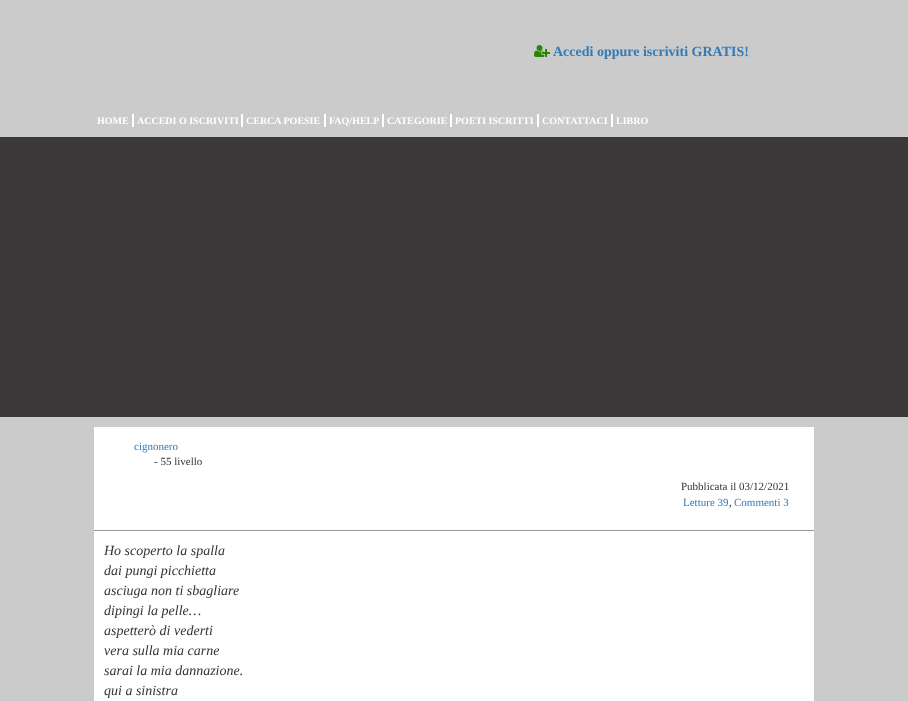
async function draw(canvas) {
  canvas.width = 908;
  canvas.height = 701;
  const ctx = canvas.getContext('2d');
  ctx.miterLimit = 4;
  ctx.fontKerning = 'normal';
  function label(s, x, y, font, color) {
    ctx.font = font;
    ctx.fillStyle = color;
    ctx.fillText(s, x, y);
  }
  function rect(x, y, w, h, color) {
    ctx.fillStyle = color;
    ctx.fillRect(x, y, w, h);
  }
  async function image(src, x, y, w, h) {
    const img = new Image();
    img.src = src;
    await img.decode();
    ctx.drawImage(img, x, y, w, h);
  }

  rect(0, 0, 908, 701, '#cbcbcb');
  await image('assets/img1.png', 534, 45, 16, 12);
  label('Accedi oppure iscriviti GRATIS!', 553, 56, 'bold 14px Liberation Serif', '#337ab7');
  rect(132, 114, 2, 13, '#fff');
  label('HOME', 97, 124, 'bold 10px Liberation Serif', '#fff');
  rect(241, 114, 2, 13, '#fff');
  label('ACCEDI O ISCRIVITI', 137, 124, 'bold 10px Liberation Serif', '#fff');
  rect(324, 114, 2, 13, '#fff');
  label('CERCA POESIE', 246, 124, 'bold 10px Liberation Serif', '#fff');
  rect(382, 114, 2, 13, '#fff');
  label('FAQ/HELP', 329, 124, 'bold 10px Liberation Serif', '#fff');
  rect(450, 114, 2, 13, '#fff');
  label('CATEGORIE', 387, 124, 'bold 10px Liberation Serif', '#fff');
  rect(537, 114, 2, 13, '#fff');
  label('POETI ISCRITTI', 455, 124, 'bold 10px Liberation Serif', '#fff');
  rect(611, 114, 2, 13, '#fff');
  label('CONTATTACI', 542, 124, 'bold 10px Liberation Serif', '#fff');
  label('LIBRO', 616, 124, 'bold 10px Liberation Serif', '#fff');
  rect(0, 137, 908, 280, '#3a3838');
  rect(94, 427, 720, 274, '#fff');
  label('cignonero', 134, 450, '11px Liberation Serif', '#337ab7');
  label('- 55 livello', 154, 465, '11px Liberation Serif', '#333');
  label('Pubblicata il 03/12/2021', 681, 490, '11px Liberation Serif', '#333');
  label('Letture 39', 683, 506, '11px Liberation Serif', '#337ab7');
  label(',', 729, 506, '11px Liberation Serif', '#333');
  label('Commenti 3', 734, 506, '11px Liberation Serif', '#337ab7');
  rect(94, 530, 720, 1, '#999');
  label('Ho scoperto la spalla', 104, 555, 'italic 14px Liberation Serif', '#333');
  label('dai pungi picchietta', 104, 575, 'italic 14px Liberation Serif', '#333');
  label('asciuga non ti sbagliare', 104, 595, 'italic 14px Liberation Serif', '#333');
  label('dipingi la pelle…', 104, 615, 'italic 14px Liberation Serif', '#333');
  label('aspetterò di vederti', 104, 635, 'italic 14px Liberation Serif', '#333');
  label('vera sulla mia carne', 104, 655, 'italic 14px Liberation Serif', '#333');
  label('sarai la mia dannazione.', 104, 675, 'italic 14px Liberation Serif', '#333');
  label('qui a sinistra', 104, 695, 'italic 14px Liberation Serif', '#333');
}

draw(document.querySelector('canvas'));
